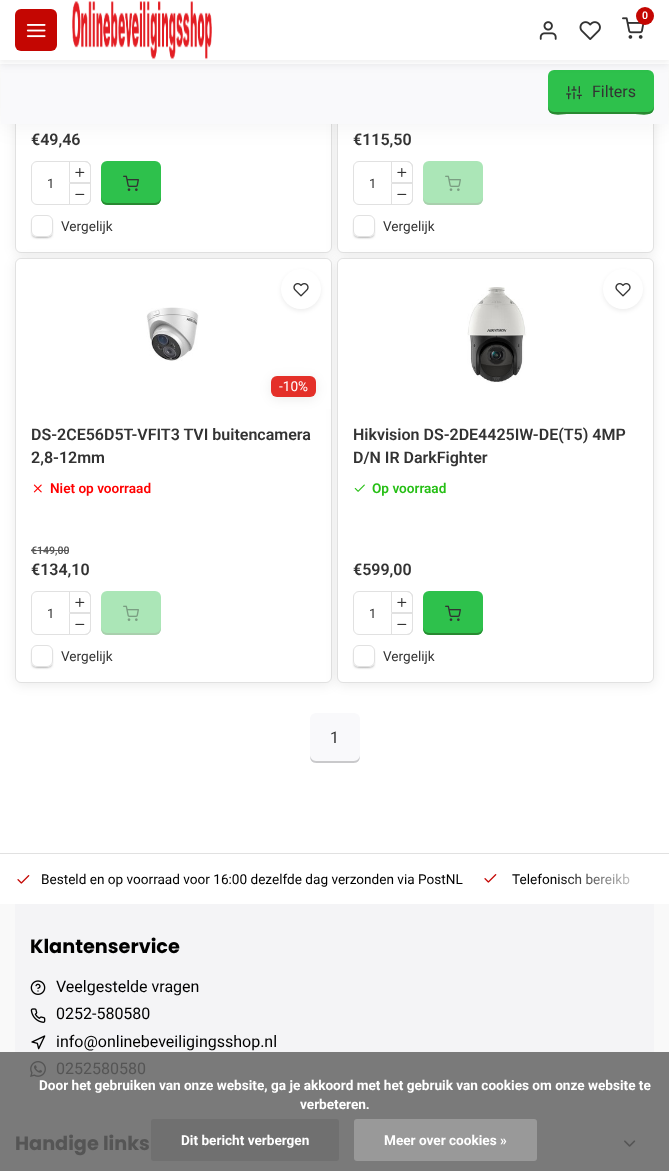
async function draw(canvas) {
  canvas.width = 669;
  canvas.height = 1171;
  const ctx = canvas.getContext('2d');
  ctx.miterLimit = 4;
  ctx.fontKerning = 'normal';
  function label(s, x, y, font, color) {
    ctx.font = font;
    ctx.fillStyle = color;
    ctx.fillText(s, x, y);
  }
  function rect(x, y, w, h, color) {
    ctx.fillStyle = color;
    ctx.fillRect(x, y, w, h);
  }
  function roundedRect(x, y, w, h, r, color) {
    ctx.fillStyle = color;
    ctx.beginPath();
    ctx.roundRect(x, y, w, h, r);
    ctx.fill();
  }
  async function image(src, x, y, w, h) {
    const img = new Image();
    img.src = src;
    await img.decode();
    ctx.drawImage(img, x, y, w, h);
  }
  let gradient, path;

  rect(0, 0, 669, 1171, '#fff');
  ctx.fillStyle = '#00000014';
  ctx.filter = 'blur(6px)';
  ctx.beginPath();
  ctx.roundRect(15, -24, 317, 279, 6);
  ctx.fill();
  ctx.filter = 'none';
  ctx.fillStyle = '#fff';
  ctx.beginPath();
  ctx.roundRect(15.5, -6.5, 316, 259, 5.5);
  ctx.fill();
  ctx.strokeStyle = '#e1e1e1';
  ctx.stroke();
  ctx.beginPath();
  ctx.roundRect(31.5, 161.5, 59, 43, 5.5);
  ctx.stroke();
  ctx.beginPath();
  ctx.roundRect(69.5, 161.5, 21, 21, [0, 5.5, 0, 0]);
  ctx.stroke();
  roundedRect(101, 161, 60, 44, 6, '#2ec14c');
  ctx.fillStyle = '#00000014';
  ctx.filter = 'blur(6px)';
  ctx.beginPath();
  ctx.roundRect(337, -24, 317, 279, 6);
  ctx.fill();
  ctx.filter = 'none';
  ctx.fillStyle = '#fff';
  ctx.beginPath();
  ctx.roundRect(337.5, -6.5, 316, 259, 5.5);
  ctx.fill();
  ctx.stroke();
  ctx.beginPath();
  ctx.roundRect(353.5, 161.5, 59, 43, 5.5);
  ctx.stroke();
  ctx.beginPath();
  ctx.roundRect(391.5, 161.5, 21, 21, [0, 5.5, 0, 0]);
  ctx.stroke();
  roundedRect(423, 161, 60, 44, 6, '#abe6b7');
  ctx.fillStyle = '#0000000d';
  ctx.filter = 'blur(12.5px)';
  ctx.beginPath();
  ctx.rect(0, 61, 669, 64);
  ctx.fill();
  ctx.filter = 'none';
  rect(1, 64, 667, 60, '#f9f9fb');
  roundedRect(548, 70, 106, 44, 6, '#2ec14c');
  ctx.fillStyle = '#0000000d';
  ctx.filter = 'blur(5px)';
  ctx.beginPath();
  ctx.rect(0, 5, 669, 60);
  ctx.fill();
  ctx.filter = 'none';
  rect(0, 60, 669, 4, '#fff');
  ctx.fillStyle = '#0000000d';
  ctx.filter = 'blur(2px)';
  ctx.beginPath();
  ctx.rect(0, 3, 669, 60);
  ctx.fill();
  ctx.filter = 'none';
  rect(0, 0, 669, 60, '#fff');
  roundedRect(15, 9, 42, 42, 6, '#c40602');
  await image('assets/img1.png', 26, 24, 20, 14);
  await image('assets/img2.png', 72, 1, 140, 59);
  await image('assets/img3.png', 622, 17, 23, 22);
  ctx.beginPath();
  ctx.arc(645, 16, 9, 0, 2 * Math.PI);
  ctx.fill();
  label('0', 642, 19, '600 10.5px Roboto', '#fff');
  await image('assets/img4.png', 539, 21, 18, 19);
  await image('assets/img5.png', 579, 21, 22, 19);
  ctx.fillStyle = '#298831';
  path = new Path2D('M548 106C548 118 560 114 570 114H632C642 114 654 118 654 106C654 109 651 112 648 112H554C551 112 548 109 548 106Z');
  ctx.fill(path);
  await image('assets/img6.png', 566, 86, 16, 14);
  label('Filters', 592, 97, '16px Roboto', '#333');
  label('€49,46', 31, 145, '600 16px Roboto', '#333');
  label('1', 47, 188, '13px Roboto', '#333');
  await image('assets/img7.png', 75, 168, 10, 9);
  ctx.beginPath();
  ctx.roundRect(69.5, 183.5, 21, 21, [0, 0, 5.5, 0]);
  ctx.stroke();
  await image('assets/img8.png', 75, 193, 10, 2);
  ctx.fillStyle = '#298831';
  path = new Path2D('M101 197C101 200 104 203 107 203H155C158 203 161 200 161 197C161 206 155 205 147 205H115C107 205 101 206 101 197Z');
  ctx.fill(path);
  await image('assets/img9.png', 123, 175, 16, 16);
  ctx.save();
  path = new Path2D('M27 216H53V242H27ZM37 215H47C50.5 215 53 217.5 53 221V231C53 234.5 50.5 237 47 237H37C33.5 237 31 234.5 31 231V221C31 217.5 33.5 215 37 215Z');
  ctx.clip(path, 'evenodd');
  ctx.fillStyle = '#999';
  ctx.filter = 'blur(1.5px)';
  ctx.beginPath();
  ctx.roundRect(33, 222, 14, 14, 2);
  ctx.fill();
  ctx.filter = 'none';
  ctx.restore();
  ctx.save();
  path = new Path2D('M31 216H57V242H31ZM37 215H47C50.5 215 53 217.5 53 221V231C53 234.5 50.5 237 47 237H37C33.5 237 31 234.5 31 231V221C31 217.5 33.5 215 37 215Z');
  ctx.clip(path, 'evenodd');
  ctx.fillStyle = '#999';
  ctx.filter = 'blur(1.5px)';
  ctx.beginPath();
  ctx.roundRect(37, 222, 14, 14, 2);
  ctx.fill();
  ctx.filter = 'none';
  ctx.restore();
  ctx.save();
  path = new Path2D('M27 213H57V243H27ZM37 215H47C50.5 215 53 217.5 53 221V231C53 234.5 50.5 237 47 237H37C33.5 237 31 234.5 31 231V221C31 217.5 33.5 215 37 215Z');
  ctx.clip(path, 'evenodd');
  ctx.fillStyle = '#999';
  ctx.filter = 'blur(1.5px)';
  ctx.beginPath();
  ctx.roundRect(33, 219, 18, 18, 4);
  ctx.fill();
  ctx.filter = 'none';
  ctx.restore();
  ctx.beginPath();
  ctx.roundRect(31.5, 215.5, 21, 21, 5.5);
  ctx.stroke();
  label('Vergelijk', 61, 231, '13.6px Roboto', '#333');
  label('€115,50', 353, 145, '600 16px Roboto', '#333');
  label('1', 369, 188, '13px Roboto', '#333');
  await image('assets/img7.png', 397, 168, 10, 9);
  ctx.beginPath();
  ctx.roundRect(391.5, 183.5, 21, 21, [0, 0, 5.5, 0]);
  ctx.stroke();
  await image('assets/img8.png', 397, 193, 10, 2);
  ctx.fillStyle = '#a9cfad';
  path = new Path2D('M423 197C423 200 426 203 429 203H477C480 203 483 200 483 197C483 206 477 205 469 205H437C429 205 423 206 423 197Z');
  ctx.fill(path);
  await image('assets/img10.png', 445, 175, 16, 16);
  ctx.save();
  path = new Path2D('M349 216H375V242H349ZM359 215H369C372.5 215 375 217.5 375 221V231C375 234.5 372.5 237 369 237H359C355.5 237 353 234.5 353 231V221C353 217.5 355.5 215 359 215Z');
  ctx.clip(path, 'evenodd');
  ctx.fillStyle = '#999';
  ctx.filter = 'blur(1.5px)';
  ctx.beginPath();
  ctx.roundRect(355, 222, 14, 14, 2);
  ctx.fill();
  ctx.filter = 'none';
  ctx.restore();
  ctx.save();
  path = new Path2D('M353 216H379V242H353ZM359 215H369C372.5 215 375 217.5 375 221V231C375 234.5 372.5 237 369 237H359C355.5 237 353 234.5 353 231V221C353 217.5 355.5 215 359 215Z');
  ctx.clip(path, 'evenodd');
  ctx.fillStyle = '#999';
  ctx.filter = 'blur(1.5px)';
  ctx.beginPath();
  ctx.roundRect(359, 222, 14, 14, 2);
  ctx.fill();
  ctx.filter = 'none';
  ctx.restore();
  ctx.save();
  path = new Path2D('M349 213H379V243H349ZM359 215H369C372.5 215 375 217.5 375 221V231C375 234.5 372.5 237 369 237H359C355.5 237 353 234.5 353 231V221C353 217.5 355.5 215 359 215Z');
  ctx.clip(path, 'evenodd');
  ctx.fillStyle = '#999';
  ctx.filter = 'blur(1.5px)';
  ctx.beginPath();
  ctx.roundRect(355, 219, 18, 18, 4);
  ctx.fill();
  ctx.filter = 'none';
  ctx.restore();
  ctx.beginPath();
  ctx.roundRect(353.5, 215.5, 21, 21, 5.5);
  ctx.stroke();
  label('Vergelijk', 383, 231, '13.6px Roboto', '#333');
  ctx.fillStyle = '#00000014';
  ctx.filter = 'blur(6px)';
  ctx.beginPath();
  ctx.roundRect(15, 260, 317, 425, 6);
  ctx.fill();
  ctx.filter = 'none';
  ctx.fillStyle = '#fff';
  ctx.beginPath();
  ctx.roundRect(15.5, 258.5, 316, 424, 5.5);
  ctx.fill();
  ctx.stroke();
  ctx.fillStyle = '#00000014';
  ctx.filter = 'blur(6px)';
  ctx.beginPath();
  ctx.roundRect(337, 260, 317, 425, 6);
  ctx.fill();
  ctx.filter = 'none';
  ctx.fillStyle = '#fff';
  ctx.beginPath();
  ctx.roundRect(16, 259, 315, 150, [6, 6, 0, 0]);
  ctx.fill();
  await image('assets/img11.png', 146, 307, 53, 54);
  ctx.fillStyle = '#00000012';
  ctx.filter = 'blur(2px)';
  ctx.beginPath();
  ctx.roundRect(281, 271, 40, 40, 20);
  ctx.fill();
  ctx.filter = 'none';
  ctx.fillStyle = '#fff';
  ctx.beginPath();
  ctx.arc(301, 289, 20, 0, 2 * Math.PI);
  ctx.fill();
  await image('assets/img12.png', 293, 283, 16, 14);
  ctx.fillStyle = '#00000014';
  ctx.filter = 'blur(6px)';
  ctx.beginPath();
  ctx.roundRect(271, 378, 45, 21, 6);
  ctx.fill();
  ctx.filter = 'none';
  roundedRect(271, 376, 45, 21, 6, '#e43029');
  label('-10%', 279, 391, '13.6px Roboto', '#fff');
  label('DS-2CE56D5T-VFIT3 TVI buitencamera', 31, 440, '600 16px Roboto', '#333');
  label('2,8-12mm', 31, 463, '600 16px Roboto', '#333');
  await image('assets/img13.png', 33, 484, 9, 9);
  label('Niet op voorraad', 50, 493, '600 13.6px Roboto', '#f00');
  label('€149,00', 31, 554, '600 10.5px Roboto', '#555');
  rect(31, 550, 38, 1, '#595959');
  label('€134,10', 31, 575, '600 16px Roboto', '#333');
  ctx.beginPath();
  ctx.roundRect(31.5, 591.5, 59, 43, 5.5);
  ctx.stroke();
  label('1', 47, 618, '13px Roboto', '#333');
  ctx.beginPath();
  ctx.roundRect(69.5, 591.5, 21, 21, [0, 5.5, 0, 0]);
  ctx.stroke();
  await image('assets/img7.png', 75, 598, 10, 9);
  ctx.beginPath();
  ctx.roundRect(69.5, 613.5, 21, 21, [0, 0, 5.5, 0]);
  ctx.stroke();
  await image('assets/img8.png', 75, 623, 10, 2);
  roundedRect(101, 591, 60, 44, 6, '#abe6b7');
  ctx.fillStyle = '#a9cfad';
  path = new Path2D('M101 627C101 630 104 633 107 633H155C158 633 161 630 161 627C161 636 155 635 147 635H115C107 635 101 636 101 627Z');
  ctx.fill(path);
  await image('assets/img10.png', 123, 605, 16, 16);
  ctx.save();
  path = new Path2D('M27 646H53V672H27ZM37 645H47C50.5 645 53 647.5 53 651V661C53 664.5 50.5 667 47 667H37C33.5 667 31 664.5 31 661V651C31 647.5 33.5 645 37 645Z');
  ctx.clip(path, 'evenodd');
  ctx.fillStyle = '#999';
  ctx.filter = 'blur(1.5px)';
  ctx.beginPath();
  ctx.roundRect(33, 652, 14, 14, 2);
  ctx.fill();
  ctx.filter = 'none';
  ctx.restore();
  ctx.save();
  path = new Path2D('M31 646H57V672H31ZM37 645H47C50.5 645 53 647.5 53 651V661C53 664.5 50.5 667 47 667H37C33.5 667 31 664.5 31 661V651C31 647.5 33.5 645 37 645Z');
  ctx.clip(path, 'evenodd');
  ctx.fillStyle = '#999';
  ctx.filter = 'blur(1.5px)';
  ctx.beginPath();
  ctx.roundRect(37, 652, 14, 14, 2);
  ctx.fill();
  ctx.filter = 'none';
  ctx.restore();
  ctx.save();
  path = new Path2D('M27 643H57V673H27ZM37 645H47C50.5 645 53 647.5 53 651V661C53 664.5 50.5 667 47 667H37C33.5 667 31 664.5 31 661V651C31 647.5 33.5 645 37 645Z');
  ctx.clip(path, 'evenodd');
  ctx.fillStyle = '#999';
  ctx.filter = 'blur(1.5px)';
  ctx.beginPath();
  ctx.roundRect(33, 649, 18, 18, 4);
  ctx.fill();
  ctx.filter = 'none';
  ctx.restore();
  ctx.beginPath();
  ctx.roundRect(31.5, 645.5, 21, 21, 5.5);
  ctx.stroke();
  label('Vergelijk', 61, 661, '13.6px Roboto', '#333');
  ctx.fillStyle = '#fff';
  ctx.beginPath();
  ctx.roundRect(337.5, 258.5, 316, 424, 5.5);
  ctx.fill();
  ctx.stroke();
  ctx.beginPath();
  ctx.roundRect(338, 259, 315, 150, [6, 6, 0, 0]);
  ctx.fill();
  await image('assets/img14.png', 467, 287, 60, 96);
  ctx.fillStyle = '#00000012';
  ctx.filter = 'blur(2px)';
  ctx.beginPath();
  ctx.roundRect(603, 271, 40, 40, 20);
  ctx.fill();
  ctx.filter = 'none';
  ctx.fillStyle = '#fff';
  ctx.beginPath();
  ctx.arc(623, 289, 20, 0, 2 * Math.PI);
  ctx.fill();
  await image('assets/img12.png', 615, 283, 16, 14);
  label('Hikvision DS-2DE4425IW-DE(T5) 4MP', 353, 440, '600 16px Roboto', '#333');
  label('D/N IR DarkFighter', 353, 463, '600 16px Roboto', '#333');
  await image('assets/img15.png', 354, 484, 11, 8);
  label('Op voorraad', 372, 493, '600 13.6px Roboto', '#26bf15');
  label('€599,00', 353, 575, '600 16px Roboto', '#333');
  ctx.beginPath();
  ctx.roundRect(353.5, 591.5, 59, 43, 5.5);
  ctx.stroke();
  label('1', 369, 618, '13px Roboto', '#333');
  ctx.beginPath();
  ctx.roundRect(391.5, 591.5, 21, 21, [0, 5.5, 0, 0]);
  ctx.stroke();
  await image('assets/img7.png', 397, 598, 10, 9);
  ctx.beginPath();
  ctx.roundRect(391.5, 613.5, 21, 21, [0, 0, 5.5, 0]);
  ctx.stroke();
  await image('assets/img8.png', 397, 623, 10, 2);
  roundedRect(423, 591, 60, 44, 6, '#2ec14c');
  ctx.fillStyle = '#298831';
  path = new Path2D('M423 627C423 630 426 633 429 633H477C480 633 483 630 483 627C483 636 477 635 469 635H437C429 635 423 636 423 627Z');
  ctx.fill(path);
  await image('assets/img9.png', 445, 605, 16, 16);
  ctx.save();
  path = new Path2D('M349 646H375V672H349ZM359 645H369C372.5 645 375 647.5 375 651V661C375 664.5 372.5 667 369 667H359C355.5 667 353 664.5 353 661V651C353 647.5 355.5 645 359 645Z');
  ctx.clip(path, 'evenodd');
  ctx.fillStyle = '#999';
  ctx.filter = 'blur(1.5px)';
  ctx.beginPath();
  ctx.roundRect(355, 652, 14, 14, 2);
  ctx.fill();
  ctx.filter = 'none';
  ctx.restore();
  ctx.save();
  path = new Path2D('M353 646H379V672H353ZM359 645H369C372.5 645 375 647.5 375 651V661C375 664.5 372.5 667 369 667H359C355.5 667 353 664.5 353 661V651C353 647.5 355.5 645 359 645Z');
  ctx.clip(path, 'evenodd');
  ctx.fillStyle = '#999';
  ctx.filter = 'blur(1.5px)';
  ctx.beginPath();
  ctx.roundRect(359, 652, 14, 14, 2);
  ctx.fill();
  ctx.filter = 'none';
  ctx.restore();
  ctx.save();
  path = new Path2D('M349 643H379V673H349ZM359 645H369C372.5 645 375 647.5 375 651V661C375 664.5 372.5 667 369 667H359C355.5 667 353 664.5 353 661V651C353 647.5 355.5 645 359 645Z');
  ctx.clip(path, 'evenodd');
  ctx.fillStyle = '#999';
  ctx.filter = 'blur(1.5px)';
  ctx.beginPath();
  ctx.roundRect(355, 649, 18, 18, 4);
  ctx.fill();
  ctx.filter = 'none';
  ctx.restore();
  ctx.beginPath();
  ctx.roundRect(353.5, 645.5, 21, 21, 5.5);
  ctx.stroke();
  label('Vergelijk', 383, 661, '13.6px Roboto', '#333');
  roundedRect(310, 713, 50, 50, 6, '#f9f9fb');
  ctx.fillStyle = '#c9c9cb';
  path = new Path2D('M310 755C310 764 315 763 322 763H348C355 763 360 764 360 755C360 758 357 761 354 761H316C313 761 310 758 310 755Z');
  ctx.fill(path);
  label('1', 330, 743, '16px Roboto', '#333');
  rect(0, 853, 669, 1, '#e1e1e1');
  await image('assets/img16.png', 17, 875, 13, 9);
  label('Besteld en op voorraad voor 16:00 dezelfde dag verzonden via PostNL', 41, 884, '13.6px Roboto', '#000');
  await image('assets/img16.png', 484, 874, 13, 9);
  label('Telefonisch bereikb', 512, 884, '13.6px Roboto', '#000');
  gradient = ctx.createLinearGradient(558, 879, 654, 879);
  gradient.addColorStop(0, '#ffffff00');
  gradient.addColorStop(1, '#fff');
  ctx.fillStyle = gradient;
  ctx.fillRect(561, 873, 69, 12);
  rect(0, 904, 669, 148, '#f9f9f9');
  rect(0, 1052, 669, 119, '#7a7a7a');
  rect(15, 904, 639, 148, '#f4f4f6');
  label('Klantenservice', 30, 953, 'bold 19.25px Poppins', '#000');
  await image('assets/img17.png', 30, 980, 16, 15);
  label('Veelgestelde vragen', 56, 992, '16px Roboto', '#000');
  await image('assets/img18.png', 30, 1008, 16, 15);
  label('0252-580580', 56, 1019, '16px Roboto', '#000');
  await image('assets/img19.png', 31, 1035, 15, 15);
  label('info@onlinebeveiligingsshop.nl', 56, 1047, '16px Roboto', '#000');
  await image('assets/img20.png', 30, 1061, 16, 16);
  label('0252580580', 56, 1074, '16px Roboto', '#555');
  label('Handige links', 15, 1150, 'bold 19.25px Poppins', '#555');
  await image('assets/img21.png', 624, 1140, 12, 7);
  label('Door het gebruiken van onze website, ga je akkoord met het gebruik van cookies om onze website te', 39, 1090, 'bold 13.6px Roboto', '#fff');
  label('verbeteren.', 300, 1109, 'bold 13.6px Roboto', '#fff');
  roundedRect(151, 1119, 188, 42, 3, '#707070');
  label('Dit bericht verbergen', 181, 1145, 'bold 13.6px Roboto', '#fff');
  roundedRect(354, 1119, 183, 42, 3, '#999');
  label('Meer over cookies »', 384, 1145, 'bold 13.6px Roboto', '#fff');
}

draw(document.querySelector('canvas'));
